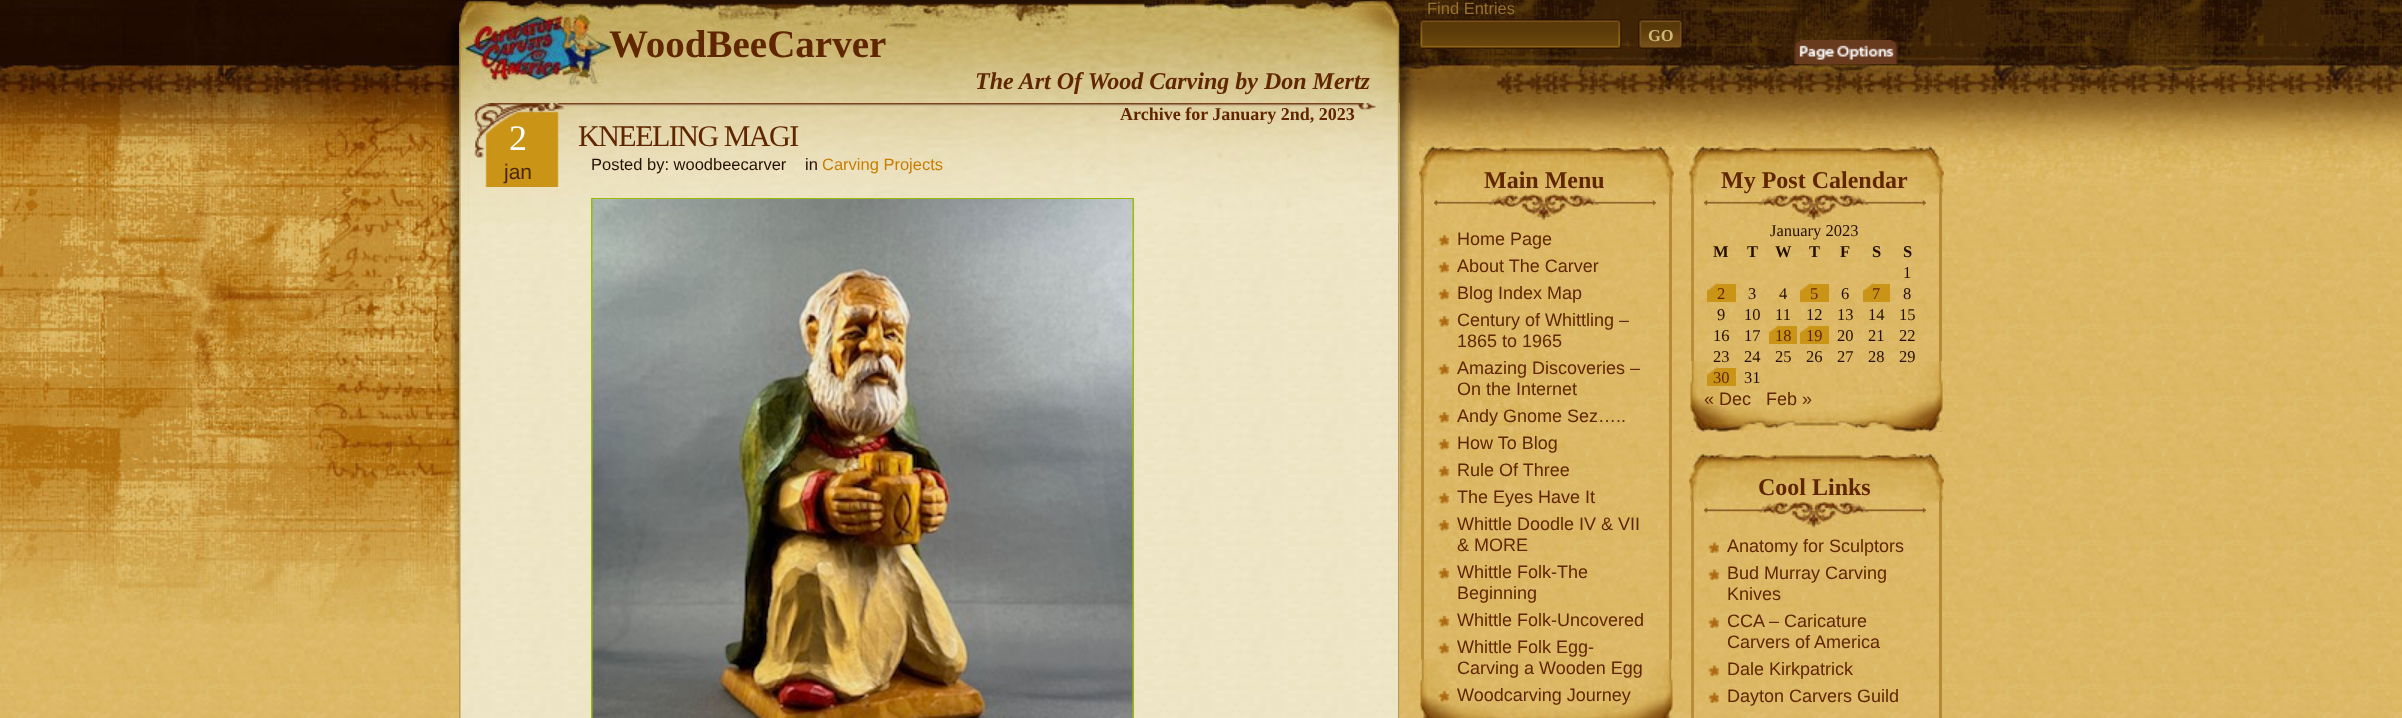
async function draw(canvas) {
  canvas.width = 2402;
  canvas.height = 718;
  const ctx = canvas.getContext('2d');
  ctx.miterLimit = 4;
  ctx.fontKerning = 'normal';
  function label(s, x, y, font, color) {
    ctx.font = font;
    ctx.fillStyle = color;
    ctx.fillText(s, x, y);
  }
  function rect(x, y, w, h, color) {
    ctx.fillStyle = color;
    ctx.fillRect(x, y, w, h);
  }
  async function image(src, x, y, w, h) {
    const img = new Image();
    img.src = src;
    await img.decode();
    ctx.drawImage(img, x, y, w, h);
  }

  rect(0, 0, 2402, 718, '#fff');
  await image('assets/img1.png', 0, 182, 2402, 536);
  await image('assets/img2.png', 0, 0, 459, 624);
  await image('assets/img3.png', 313, 17, 146, 607);
  await image('assets/img10.png', 1399, 0, 1003, 183);
  await image('assets/img4.png', 1399, 0, 545, 183);
  label('Find Entries', 1427, 14, '16.5px Liberation Sans', '#97712c');
  await image('assets/img7.png', 459, 0, 941, 223);
  await image('assets/img8.png', 1399, 20, 154, 571);
  await image('assets/img5.png', 1419, 19, 203, 30);
  await image('assets/img6.png', 1638, 19, 45, 30);
  label('GO', 1648, 41, 'bold 16.5px Liberation Serif', '#ceb978');
  label('WoodBeeCarver', 609, 57, 'bold 39px Liberation Serif', '#602600');
  label('The Art Of Wood Carving by Don Mertz', 975, 89, 'italic bold 24px Liberation Serif', '#602600');
  await image('assets/img9.png', 1794, 40, 104, 24);
  await image('assets/img11.png', 460, 103, 940, 615);
  await image('assets/img12.png', 1398, 103, 2, 615);
  await image('assets/img13.png', 459, 223, 2, 495);
  await image('assets/img14.png', 459, 103, 941, 120);
  label('Archive for January 2nd, 2023', 1120, 120, 'bold 18px Liberation Serif', '#602600');
  await image('assets/img15.png', 474, 103, 902, 55);
  await image('assets/img16.png', 474, 103, 89, 84);
  label('2', 509, 150, '36px Liberation Serif', '#fff');
  label('jan', 504, 179, '21px Liberation Sans', '#4c2604');
  ctx.letterSpacing = '-1.5px';
  label('KNEELING MAGI', 578, 146, '30px Liberation Serif', '#602600');
  ctx.letterSpacing = '0px';
  label('Posted by: woodbeecarver', 591, 170, '16.5px Liberation Sans', '#240f02');
  label('in', 805, 170, '16.5px Liberation Sans', '#240f02');
  label('Carving Projects', 822, 170, '16.5px Liberation Sans', '#c97e00');
  ctx.strokeStyle = '#99ba09';
  ctx.lineWidth = 2;
  ctx.strokeRect(592, 199, 541, 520);
  await image('assets/img17.png', 592, 199, 541, 519);
  await image('assets/img18.png', 1525, 707, 41, 11);
  await image('assets/img19.png', 1419, 146, 255, 43);
  rect(1669, 146, 3, 514, '#b0822ede');
  rect(1421, 146, 3, 514, '#b0832ecf');
  await image('assets/img20.png', 1566, 659, 108, 59);
  await image('assets/img21.png', 1419, 659, 107, 59);
  await image('assets/img22.png', 1584, 146, 90, 49);
  await image('assets/img23.png', 1419, 146, 90, 49);
  await image('assets/img24.png', 1434, 194, 222, 26);
  label('Main Menu', 1484, 188, 'bold 24px Liberation Serif', '#602600');
  await image('assets/img25.png', 1438, 235, 11, 11);
  label('Home Page', 1457, 245, '18px Liberation Sans', '#602600');
  await image('assets/img26.png', 1438, 262, 11, 11);
  label('About The Carver', 1457, 272, '18px Liberation Sans', '#602600');
  await image('assets/img27.png', 1438, 289, 11, 11);
  label('Blog Index Map', 1457, 299, '18px Liberation Sans', '#602600');
  await image('assets/img28.png', 1438, 316, 11, 11);
  label('Century of Whittling –', 1457, 326, '18px Liberation Sans', '#602600');
  label('1865 to 1965', 1457, 347, '18px Liberation Sans', '#602600');
  await image('assets/img29.png', 1438, 364, 11, 11);
  label('Amazing Discoveries –', 1457, 374, '18px Liberation Sans', '#602600');
  label('On the Internet', 1457, 395, '18px Liberation Sans', '#602600');
  await image('assets/img30.png', 1438, 412, 11, 11);
  label('Andy Gnome Sez…..', 1457, 422, '18px Liberation Sans', '#602600');
  await image('assets/img31.png', 1438, 439, 11, 11);
  label('How To Blog', 1457, 449, '18px Liberation Sans', '#602600');
  await image('assets/img32.png', 1438, 466, 11, 11);
  label('Rule Of Three', 1457, 476, '18px Liberation Sans', '#602600');
  await image('assets/img33.png', 1438, 493, 11, 11);
  label('The Eyes Have It', 1457, 503, '18px Liberation Sans', '#602600');
  await image('assets/img34.png', 1438, 520, 11, 11);
  label('Whittle Doodle IV & VII', 1457, 530, '18px Liberation Sans', '#602600');
  label('& MORE', 1457, 551, '18px Liberation Sans', '#602600');
  await image('assets/img35.png', 1438, 568, 11, 11);
  label('Whittle Folk-The', 1457, 578, '18px Liberation Sans', '#602600');
  label('Beginning', 1457, 599, '18px Liberation Sans', '#602600');
  await image('assets/img36.png', 1438, 616, 11, 11);
  label('Whittle Folk-Uncovered', 1457, 626, '18px Liberation Sans', '#602600');
  await image('assets/img37.png', 1438, 643, 11, 11);
  label('Whittle Folk Egg-', 1457, 653, '18px Liberation Sans', '#602600');
  label('Carving a Wooden Egg', 1457, 674, '18px Liberation Sans', '#602600');
  await image('assets/img38.png', 1438, 691, 11, 11);
  label('Woodcarving Journey', 1457, 701, '18px Liberation Sans', '#602600');
  await image('assets/img39.png', 1689, 409, 255, 23);
  await image('assets/img40.png', 1689, 146, 255, 43);
  rect(1939, 146, 3, 286, '#b0822ede');
  rect(1691, 146, 3, 286, '#b0832ecf');
  await image('assets/img41.png', 1836, 361, 108, 71);
  await image('assets/img42.png', 1689, 361, 107, 71);
  await image('assets/img43.png', 1854, 146, 90, 49);
  await image('assets/img44.png', 1689, 146, 90, 49);
  await image('assets/img45.png', 1704, 194, 222, 26);
  label('My Post Calendar', 1721, 188, 'bold 24px Liberation Serif', '#602600');
  label('January 2023', 1770, 236, '16.5px Liberation Serif', '#240f02');
  label('M', 1713, 257, 'bold 16.5px Liberation Serif', '#240f02');
  label('T', 1747, 257, 'bold 16.5px Liberation Serif', '#240f02');
  label('W', 1775, 257, 'bold 16.5px Liberation Serif', '#240f02');
  label('T', 1809, 257, 'bold 16.5px Liberation Serif', '#240f02');
  label('F', 1840, 257, 'bold 16.5px Liberation Serif', '#240f02');
  label('S', 1872, 257, 'bold 16.5px Liberation Serif', '#240f02');
  label('S', 1903, 257, 'bold 16.5px Liberation Serif', '#240f02');
  label('1', 1903, 278, '16.5px Liberation Serif', '#240f02');
  rect(1707, 284, 29, 18, '#ca9417');
  await image('assets/img46.png', 1707, 283, 11, 8);
  label('2', 1717, 299, '16.5px Liberation Serif', '#602600');
  label('3', 1748, 299, '16.5px Liberation Serif', '#240f02');
  label('4', 1779, 299, '16.5px Liberation Serif', '#240f02');
  rect(1800, 284, 29, 18, '#ca9417');
  await image('assets/img47.png', 1800, 283, 11, 8);
  label('5', 1810, 299, '16.5px Liberation Serif', '#602600');
  label('6', 1841, 299, '16.5px Liberation Serif', '#240f02');
  rect(1863, 284, 27, 18, '#ca9417');
  await image('assets/img47.png', 1863, 283, 11, 8);
  label('7', 1872, 299, '16.5px Liberation Serif', '#602600');
  label('8', 1903, 299, '16.5px Liberation Serif', '#240f02');
  label('9', 1717, 320, '16.5px Liberation Serif', '#240f02');
  label('10', 1744, 320, '16.5px Liberation Serif', '#240f02');
  label('11', 1775, 320, '16.5px Liberation Serif', '#240f02');
  label('12', 1806, 320, '16.5px Liberation Serif', '#240f02');
  label('13', 1837, 320, '16.5px Liberation Serif', '#240f02');
  label('14', 1868, 320, '16.5px Liberation Serif', '#240f02');
  label('15', 1899, 320, '16.5px Liberation Serif', '#240f02');
  label('16', 1713, 341, '16.5px Liberation Serif', '#240f02');
  label('17', 1744, 341, '16.5px Liberation Serif', '#240f02');
  rect(1769, 326, 28, 18, '#ca9417');
  await image('assets/img48.png', 1768, 325, 11, 8);
  label('18', 1775, 341, '16.5px Liberation Serif', '#602600');
  rect(1800, 326, 29, 18, '#ca9417');
  await image('assets/img49.png', 1800, 325, 11, 8);
  label('19', 1806, 341, '16.5px Liberation Serif', '#602600');
  label('20', 1837, 341, '16.5px Liberation Serif', '#240f02');
  label('21', 1868, 341, '16.5px Liberation Serif', '#240f02');
  label('22', 1899, 341, '16.5px Liberation Serif', '#240f02');
  label('23', 1713, 362, '16.5px Liberation Serif', '#240f02');
  label('24', 1744, 362, '16.5px Liberation Serif', '#240f02');
  label('25', 1775, 362, '16.5px Liberation Serif', '#240f02');
  label('26', 1806, 362, '16.5px Liberation Serif', '#240f02');
  label('27', 1837, 362, '16.5px Liberation Serif', '#240f02');
  label('28', 1868, 362, '16.5px Liberation Serif', '#240f02');
  label('29', 1899, 362, '16.5px Liberation Serif', '#240f02');
  rect(1707, 368, 29, 18, '#ca9417');
  await image('assets/img50.png', 1707, 367, 11, 8);
  label('30', 1713, 383, '16.5px Liberation Serif', '#602600');
  label('31', 1744, 383, '16.5px Liberation Serif', '#240f02');
  label('« Dec', 1704, 405, '18px Liberation Sans', '#602600');
  label('Feb »', 1766, 405, '18px Liberation Sans', '#602600');
  await image('assets/img51.png', 1779, 454, 75, 42);
  rect(1939, 502, 3, 216, '#b0822ede');
  rect(1691, 502, 3, 216, '#b0832ecf');
  await image('assets/img52.png', 1854, 454, 90, 48);
  await image('assets/img53.png', 1689, 454, 90, 48);
  await image('assets/img54.png', 1704, 502, 222, 26);
  label('Cool Links', 1758, 495, 'bold 24px Liberation Serif', '#602600');
  await image('assets/img55.png', 1708, 542, 11, 11);
  label('Anatomy for Sculptors', 1727, 552, '18px Liberation Sans', '#602600');
  await image('assets/img56.png', 1708, 569, 11, 11);
  label('Bud Murray Carving', 1727, 579, '18px Liberation Sans', '#602600');
  label('Knives', 1727, 600, '18px Liberation Sans', '#602600');
  await image('assets/img57.png', 1708, 617, 11, 11);
  label('CCA – Caricature', 1727, 627, '18px Liberation Sans', '#602600');
  label('Carvers of America', 1727, 648, '18px Liberation Sans', '#602600');
  await image('assets/img58.png', 1708, 665, 11, 11);
  label('Dale Kirkpatrick', 1727, 675, '18px Liberation Sans', '#602600');
  await image('assets/img59.png', 1708, 692, 11, 11);
  label('Dayton Carvers Guild', 1727, 702, '18px Liberation Sans', '#602600');
}

draw(document.querySelector('canvas'));
